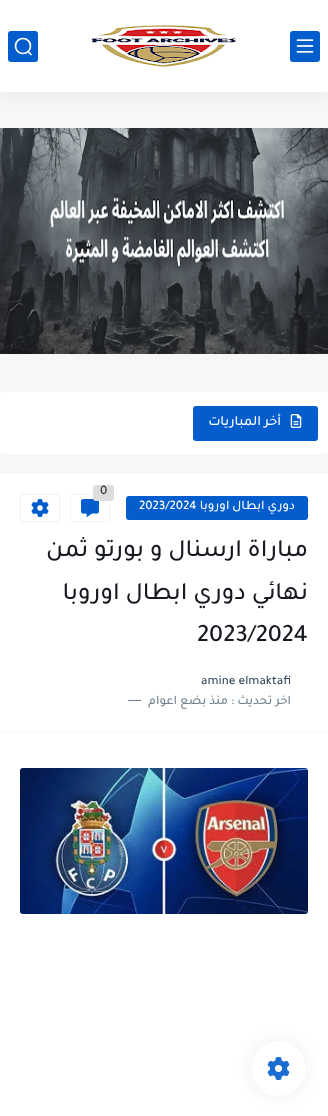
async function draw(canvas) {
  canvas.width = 328;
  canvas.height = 1116;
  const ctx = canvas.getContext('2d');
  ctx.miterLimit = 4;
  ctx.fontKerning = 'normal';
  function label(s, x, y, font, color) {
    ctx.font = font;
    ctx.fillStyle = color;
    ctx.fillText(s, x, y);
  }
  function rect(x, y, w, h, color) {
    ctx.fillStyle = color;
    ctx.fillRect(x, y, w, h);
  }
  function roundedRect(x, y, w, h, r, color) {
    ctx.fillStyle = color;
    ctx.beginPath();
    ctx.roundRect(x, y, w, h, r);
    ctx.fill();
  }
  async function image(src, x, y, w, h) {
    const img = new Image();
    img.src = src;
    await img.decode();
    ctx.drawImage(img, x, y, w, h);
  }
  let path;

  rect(0, 0, 328, 1116, '#f7f7f7');
  ctx.fillStyle = '#09204c0d';
  ctx.filter = 'blur(7px)';
  ctx.beginPath();
  ctx.rect(0, 6, 328, 92);
  ctx.fill();
  ctx.filter = 'none';
  rect(0, 0, 328, 92, '#fff');
  roundedRect(290, 31, 30, 31, 3, '#035dcd');
  await image('assets/img1.png', 296, 39, 18, 14);
  await image('assets/img2.png', 91, 25, 146, 42);
  roundedRect(8, 31, 30, 31, 3, '#035dcd');
  ctx.beginPath();
  ctx.arc(23, 46, 7.5, 0, 2 * Math.PI);
  ctx.strokeStyle = '#fff';
  ctx.lineWidth = 1.7;
  ctx.stroke();
  path = new Path2D('M28 51.5L31 54.5');
  ctx.lineCap = 'round';
  ctx.lineJoin = 'round';
  ctx.stroke(path);
  await image('assets/img3.png', 0, 128, 328, 226);
  roundedRect(0, 392, 328, 62, 3, '#fff');
  roundedRect(193, 406, 125, 35, 3, '#035dcd');
  await image('assets/img4.png', 290, 414, 12, 14);
  ctx.direction = 'rtl';
  label('أخر المباريات', 281, 425, '500 14px Tajawal', '#fff');
  rect(0, 474, 328, 257, '#fff');
  ctx.beginPath();
  ctx.roundRect(70.5, 494.5, 39, 27, 2.5);
  ctx.strokeStyle = '#f2f2f2';
  ctx.lineWidth = 1;
  ctx.lineJoin = 'miter';
  ctx.stroke();
  await image('assets/img5.png', 81, 499, 18, 18);
  roundedRect(93, 485, 21, 16, 3, '#ddd');
  ctx.direction = 'ltr';
  label('0', 100, 494, '500 13px Tajawal', '#333');
  ctx.beginPath();
  ctx.roundRect(20.5, 494.5, 39, 27, 2.5);
  ctx.stroke();
  await image('assets/img6.png', 31, 499, 18, 18);
  roundedRect(126, 496, 182, 24, 3, '#035dcd');
  ctx.direction = 'rtl';
  label('دوري ابطال اوروبا', 295, 509, '500 13px Tajawal', '#fff');
  ctx.direction = 'ltr';
  label('2023/2024', 139, 509, '500 13px Tajawal', '#fff');
  ctx.direction = 'rtl';
  label('مباراة ارسنال و بورتو ثمن', 308, 556, '500 25px Tajawal', '#171921');
  label('نهائي دوري ابطال اوروبا', 308, 599, '500 25px Tajawal', '#171921');
  ctx.direction = 'ltr';
  label('2023/2024', 197, 641, '500 25px Tajawal', '#171921');
  label('amine elmaktafi', 201, 684, '500 13px Tajawal', '#34495e');
  ctx.direction = 'rtl';
  label('اخر تحديث :', 291, 704, '500 13px Tajawal', '#71808e');
  label('منذ بضع اعوام', 228, 704, '500 13px Tajawal', '#71808e');
  rect(128, 700, 13, 1, '#71808e');
  rect(0, 732, 328, 384, '#fff');
  await image('assets/img7.png', 20, 768, 288, 146);
  ctx.fillStyle = '#1a1a1a14';
  ctx.filter = 'blur(7.5px)';
  ctx.beginPath();
  ctx.roundRect(251, 1041, 55, 55, 27.5);
  ctx.fill();
  ctx.filter = 'none';
  ctx.fillStyle = '#fff';
  ctx.beginPath();
  ctx.arc(278.5, 1068.5, 27.5, 0, 2 * Math.PI);
  ctx.fill();
  await image('assets/img8.png', 267, 1057, 23, 23);
}

draw(document.querySelector('canvas'));
